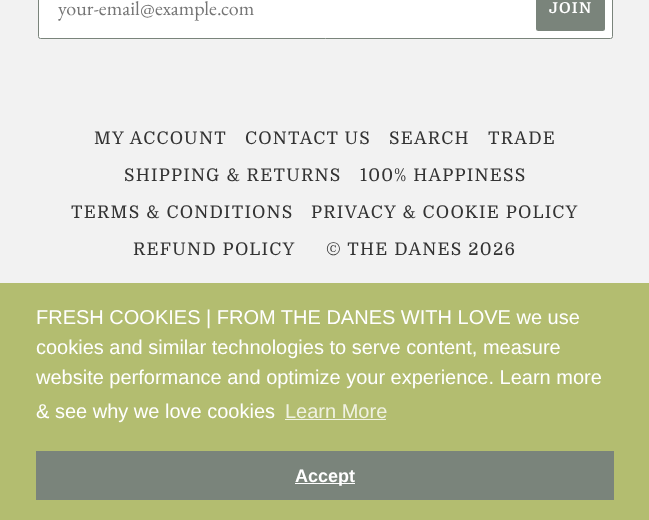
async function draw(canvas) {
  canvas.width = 649;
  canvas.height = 520;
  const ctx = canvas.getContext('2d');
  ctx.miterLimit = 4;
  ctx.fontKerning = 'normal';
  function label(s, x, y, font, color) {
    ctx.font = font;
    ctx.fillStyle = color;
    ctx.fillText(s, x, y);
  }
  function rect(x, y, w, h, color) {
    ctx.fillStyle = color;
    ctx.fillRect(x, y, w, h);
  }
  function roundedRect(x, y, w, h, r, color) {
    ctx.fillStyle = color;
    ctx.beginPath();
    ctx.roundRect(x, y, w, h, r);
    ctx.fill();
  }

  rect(0, 0, 649, 520, '#f2f2f2');
  ctx.fillStyle = '#fff';
  ctx.beginPath();
  ctx.roundRect(38.5, -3.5, 574, 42, 2);
  ctx.fill();
  ctx.strokeStyle = '#7a847b';
  ctx.stroke();
  ctx.save();
  ctx.beginPath();
  ctx.rect(58, 0, 466, 21);
  ctx.clip();
  label('your-email@example.com', 58, 15, '20px EB Garamond', '#757575');
  ctx.restore();
  roundedRect(536, -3, 69, 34, 2.5, '#7a847b');
  ctx.letterSpacing = '1.25px';
  label('JOIN', 549, 13, 'bold 15px Domine', '#fff');
  label('MY ACCOUNT', 94, 144, '17.5px Domine', '#333');
  label('CONTACT US', 245, 144, '17.5px Domine', '#333');
  label('SEARCH', 389, 144, '17.5px Domine', '#333');
  label('TRADE', 488, 144, '17.5px Domine', '#333');
  label('SHIPPING & RETURNS', 124, 181, '17.5px Domine', '#333');
  label('100% HAPPINESS', 360, 181, '17.5px Domine', '#333');
  label('TERMS & CONDITIONS', 71, 218, '17.5px Domine', '#333');
  label('PRIVACY & COOKIE POLICY', 311, 218, '17.5px Domine', '#333');
  label('REFUND POLICY', 133, 255, '17.5px Domine', '#333');
  label('© THE DANES 2026', 326, 255, '17.5px Domine', '#333');
  rect(0, 283, 649, 237, '#b3bd70');
  ctx.letterSpacing = '0px';
  label('FRESH COOKIES | FROM THE DANES WITH LOVE we use', 36, 324, '20px Liberation Sans', '#fff');
  label('cookies and similar technologies to serve content, measure', 36, 354, '20px Liberation Sans', '#fff');
  label('website performance and optimize your experience. Learn more', 36, 384, '20px Liberation Sans', '#fff');
  label('& see why we love cookies', 36, 418, '20px Liberation Sans', '#fff');
  label('Learn More', 285, 418, '20px Liberation Sans', '#f0f2e2');
  rect(285, 419, 101, 1, '#f0f2e2');
  rect(36, 451, 578, 49, '#7a847b');
  rect(295, 483, 60, 1, '#fff');
  label('Accept', 295, 482, 'bold 18px Liberation Sans', '#fff');
}

draw(document.querySelector('canvas'));
